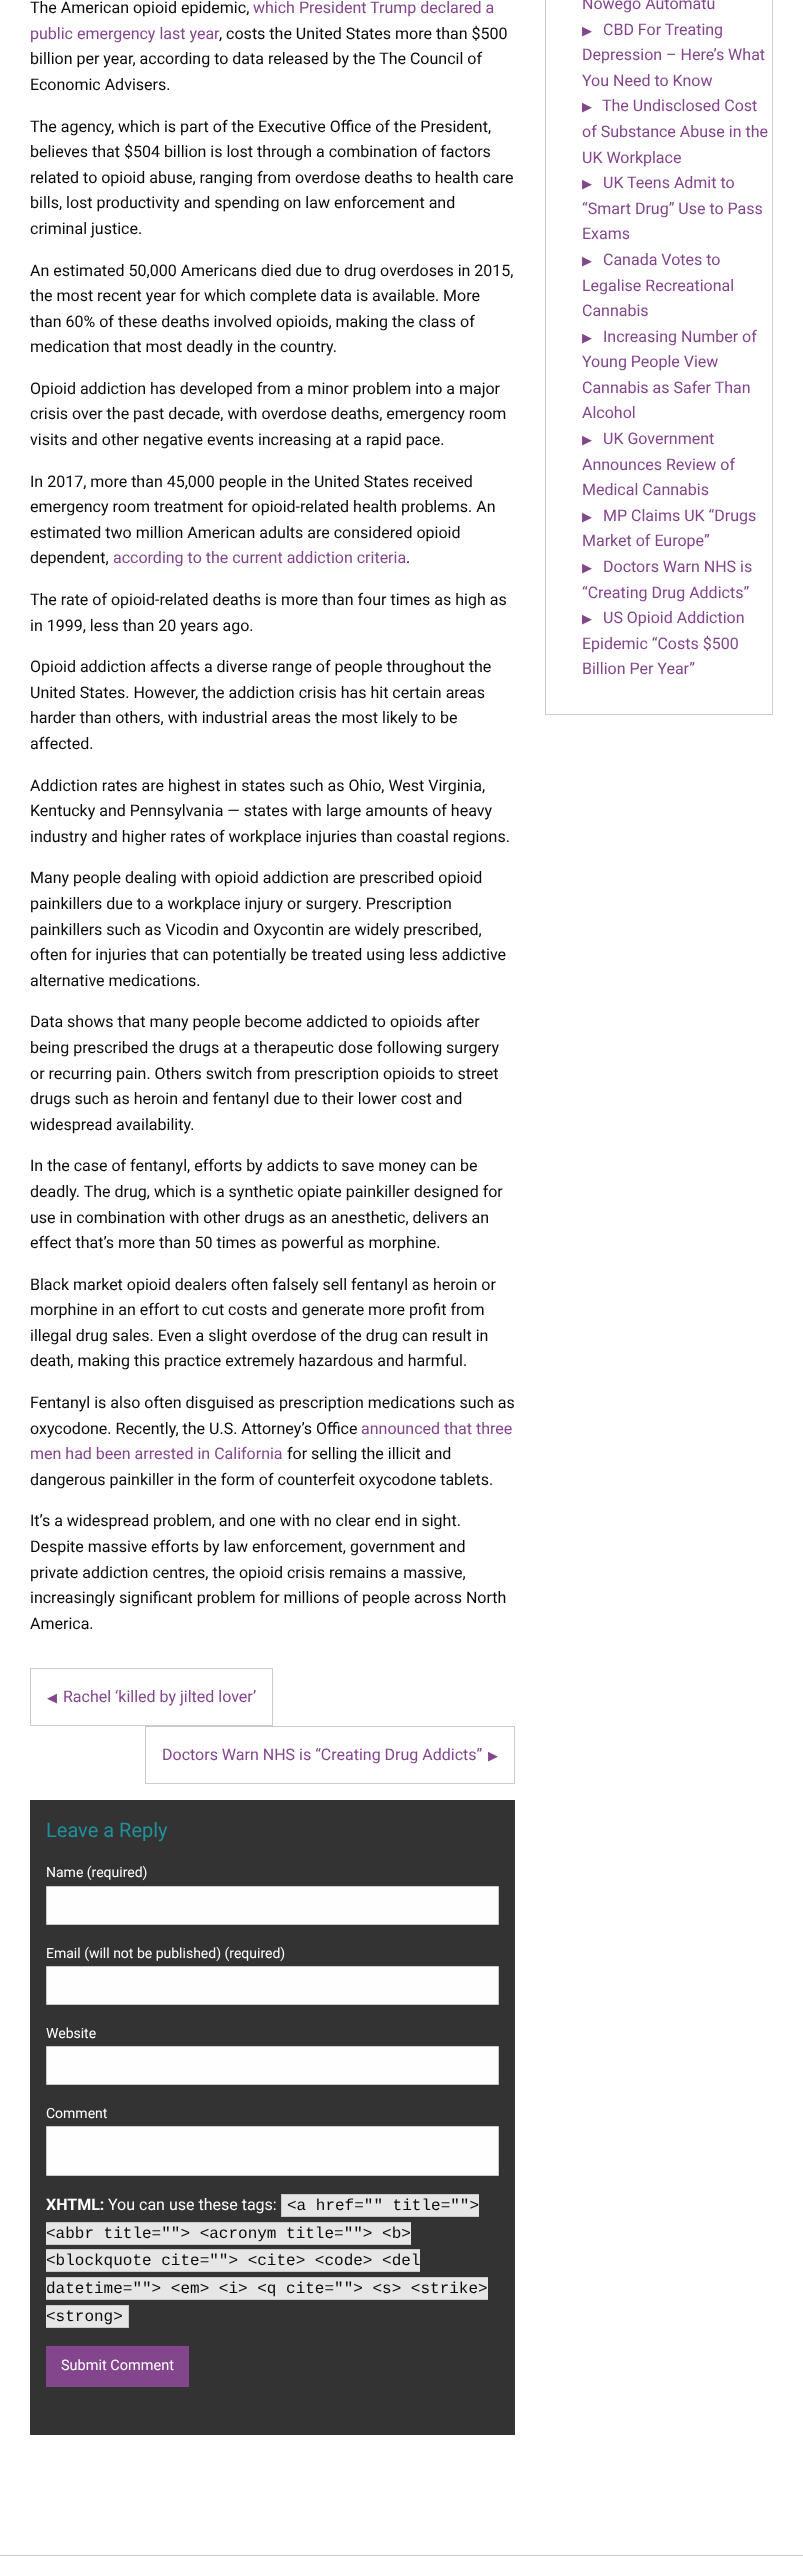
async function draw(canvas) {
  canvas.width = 803;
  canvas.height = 2567;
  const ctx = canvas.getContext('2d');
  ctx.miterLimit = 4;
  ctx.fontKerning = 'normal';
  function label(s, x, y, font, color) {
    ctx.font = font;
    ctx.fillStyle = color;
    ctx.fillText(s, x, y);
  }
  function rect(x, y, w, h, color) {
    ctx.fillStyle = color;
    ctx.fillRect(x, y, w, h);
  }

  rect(0, 0, 803, 2567, '#fff');
  label('The American opioid epidemic,', 30, 13, '16px Roboto', '#0a0a0a');
  label('which President Trump declared a', 253, 13, '16px Roboto', '#83468d');
  label('public emergency last year', 30, 39, '16px Roboto', '#83468d');
  label(', costs the United States more than $500', 219, 39, '16px Roboto', '#0a0a0a');
  label('billion per year, according to data released by the The Council of', 30, 64, '16px Roboto', '#0a0a0a');
  label('Economic Advisers.', 30, 90, '16px Roboto', '#0a0a0a');
  label('The agency, which is part of the Executive Office of the President,', 30, 132, '16px Roboto', '#0a0a0a');
  label('believes that $504 billion is lost through a combination of factors', 30, 157, '16px Roboto', '#0a0a0a');
  label('related to opioid abuse, ranging from overdose deaths to health care', 30, 183, '16px Roboto', '#0a0a0a');
  label('bills, lost productivity and spending on law enforcement and', 30, 208, '16px Roboto', '#0a0a0a');
  label('criminal justice.', 30, 234, '16px Roboto', '#0a0a0a');
  label('An estimated 50,000 Americans died due to drug overdoses in 2015,', 30, 276, '16px Roboto', '#0a0a0a');
  label('the most recent year for which complete data is available. More', 30, 301, '16px Roboto', '#0a0a0a');
  label('than 60% of these deaths involved opioids, making the class of', 30, 327, '16px Roboto', '#0a0a0a');
  label('medication that most deadly in the country.', 30, 352, '16px Roboto', '#0a0a0a');
  label('Opioid addiction has developed from a minor problem into a major', 30, 394, '16px Roboto', '#0a0a0a');
  label('crisis over the past decade, with overdose deaths, emergency room', 30, 419, '16px Roboto', '#0a0a0a');
  label('visits and other negative events increasing at a rapid pace.', 30, 445, '16px Roboto', '#0a0a0a');
  label('In 2017, more than 45,000 people in the United States received', 30, 487, '16px Roboto', '#0a0a0a');
  label('emergency room treatment for opioid-related health problems. An', 30, 512, '16px Roboto', '#0a0a0a');
  label('estimated two million American adults are considered opioid', 30, 538, '16px Roboto', '#0a0a0a');
  label('dependent,', 30, 563, '16px Roboto', '#0a0a0a');
  label('according to the current addiction criteria', 113, 563, '16px Roboto', '#83468d');
  label('.', 406, 563, '16px Roboto', '#0a0a0a');
  label('The rate of opioid-related deaths is more than four times as high as', 30, 605, '16px Roboto', '#0a0a0a');
  label('in 1999, less than 20 years ago.', 30, 631, '16px Roboto', '#0a0a0a');
  label('Opioid addiction affects a diverse range of people throughout the', 30, 672, '16px Roboto', '#0a0a0a');
  label('United States. However, the addiction crisis has hit certain areas', 30, 698, '16px Roboto', '#0a0a0a');
  label('harder than others, with industrial areas the most likely to be', 30, 723, '16px Roboto', '#0a0a0a');
  label('affected.', 30, 749, '16px Roboto', '#0a0a0a');
  label('Addiction rates are highest in states such as Ohio, West Virginia,', 30, 791, '16px Roboto', '#0a0a0a');
  label('Kentucky and Pennsylvania — states with large amounts of heavy', 30, 816, '16px Roboto', '#0a0a0a');
  label('industry and higher rates of workplace injuries than coastal regions.', 30, 842, '16px Roboto', '#0a0a0a');
  label('Many people dealing with opioid addiction are prescribed opioid', 30, 883, '16px Roboto', '#0a0a0a');
  label('painkillers due to a workplace injury or surgery. Prescription', 30, 909, '16px Roboto', '#0a0a0a');
  label('painkillers such as Vicodin and Oxycontin are widely prescribed,', 30, 935, '16px Roboto', '#0a0a0a');
  label('often for injuries that can potentially be treated using less addictive', 30, 960, '16px Roboto', '#0a0a0a');
  label('alternative medications.', 30, 986, '16px Roboto', '#0a0a0a');
  label('Data shows that many people become addicted to opioids after', 30, 1027, '16px Roboto', '#0a0a0a');
  label('being prescribed the drugs at a therapeutic dose following surgery', 30, 1053, '16px Roboto', '#0a0a0a');
  label('or recurring pain. Others switch from prescription opioids to street', 30, 1079, '16px Roboto', '#0a0a0a');
  label('drugs such as heroin and fentanyl due to their lower cost and', 30, 1104, '16px Roboto', '#0a0a0a');
  label('widespread availability.', 30, 1130, '16px Roboto', '#0a0a0a');
  label('In the case of fentanyl, efforts by addicts to save money can be', 30, 1171, '16px Roboto', '#0a0a0a');
  label('deadly. The drug, which is a synthetic opiate painkiller designed for', 30, 1197, '16px Roboto', '#0a0a0a');
  label('use in combination with other drugs as an anesthetic, delivers an', 30, 1223, '16px Roboto', '#0a0a0a');
  label('effect that’s more than 50 times as powerful as morphine.', 30, 1248, '16px Roboto', '#0a0a0a');
  label('Black market opioid dealers often falsely sell fentanyl as heroin or', 30, 1290, '16px Roboto', '#0a0a0a');
  label('morphine in an effort to cut costs and generate more profit from', 30, 1315, '16px Roboto', '#0a0a0a');
  label('illegal drug sales. Even a slight overdose of the drug can result in', 30, 1341, '16px Roboto', '#0a0a0a');
  label('death, making this practice extremely hazardous and harmful.', 30, 1366, '16px Roboto', '#0a0a0a');
  label('Fentanyl is also often disguised as prescription medications such as', 30, 1408, '16px Roboto', '#0a0a0a');
  label('oxycodone. Recently, the U.S. Attorney’s Office', 30, 1434, '16px Roboto', '#0a0a0a');
  label('announced that three', 361, 1434, '16px Roboto', '#83468d');
  label('men had been arrested in California', 30, 1459, '16px Roboto', '#83468d');
  label('for selling the illicit and', 287, 1459, '16px Roboto', '#0a0a0a');
  label('dangerous painkiller in the form of counterfeit oxycodone tablets.', 30, 1485, '16px Roboto', '#0a0a0a');
  label('It’s a widespread problem, and one with no clear end in sight.', 30, 1526, '16px Roboto', '#0a0a0a');
  label('Despite massive efforts by law enforcement, government and', 30, 1552, '16px Roboto', '#0a0a0a');
  label('private addiction centres, the opioid crisis remains a massive,', 30, 1578, '16px Roboto', '#0a0a0a');
  label('increasingly significant problem for millions of people across North', 30, 1603, '16px Roboto', '#0a0a0a');
  label('America.', 30, 1629, '16px Roboto', '#0a0a0a');
  ctx.strokeStyle = '#ccc';
  ctx.strokeRect(30.5, 1668.5, 242, 57);
  label('◀', 47, 1702, '13px DejaVu Sans', '#83468d');
  label('Rachel ‘killed by jilted lover’', 63, 1702, '16px Roboto', '#83468d');
  ctx.strokeRect(145.5, 1726.5, 369, 57);
  label('Doctors Warn NHS is “Creating Drug Addicts”', 162, 1760, '16px Roboto', '#83468d');
  label('▶', 488, 1760, '13px DejaVu Sans', '#83468d');
  rect(30, 1800, 485, 635, '#333');
  label('Leave a Reply', 46, 1837, '20px Roboto', '#20909a');
  label('Name (required)', 46, 1877, '14px Roboto', '#fff');
  ctx.fillStyle = '#fefefe';
  ctx.beginPath();
  ctx.rect(46.5, 1886.5, 452, 38);
  ctx.fill();
  ctx.strokeStyle = '#cacaca';
  ctx.stroke();
  label('Email (will not be published) (required)', 46, 1958, '14px Roboto', '#fff');
  ctx.fillStyle = '#fefefe';
  ctx.beginPath();
  ctx.rect(46.5, 1966.5, 452, 38);
  ctx.fill();
  ctx.stroke();
  label('Website', 46, 2038, '14px Roboto', '#fff');
  ctx.fillStyle = '#fefefe';
  ctx.beginPath();
  ctx.rect(46.5, 2046.5, 452, 38);
  ctx.fill();
  ctx.stroke();
  label('Comment', 46, 2118, '14px Roboto', '#fff');
  ctx.fillStyle = '#fefefe';
  ctx.beginPath();
  ctx.rect(46.5, 2126.5, 452, 49);
  ctx.fill();
  ctx.stroke();
  label('XHTML:', 46, 2210, 'bold 16px Roboto', '#fff');
  label('You can use these tags:', 108, 2210, '16px Roboto', '#fff');
  rect(282, 2195, 197, 21, '#e6e6e6');
  label('<a href="" title="">', 287, 2210, '16px Liberation Mono', '#0a0a0a');
  rect(281, 2194, 198, 1, '#cacaca');
  rect(281, 2216, 198, 1, '#cacaca');
  rect(281, 2194, 1, 23, '#cacaca');
  rect(46, 2223, 365, 21, '#e6e6e6');
  label('<abbr title=""> <acronym title=""> <b>', 46, 2238, '16px Liberation Mono', '#0a0a0a');
  rect(46, 2222, 365, 1, '#cacaca');
  rect(46, 2244, 365, 1, '#cacaca');
  rect(46, 2250, 374, 21, '#e6e6e6');
  label('<blockquote cite=""> <cite> <code> <del', 46, 2265, '16px Liberation Mono', '#0a0a0a');
  rect(46, 2249, 374, 1, '#cacaca');
  rect(46, 2271, 374, 1, '#cacaca');
  rect(46, 2278, 442, 21, '#e6e6e6');
  label('datetime=""> <em> <i> <q cite=""> <s> <strike>', 46, 2293, '16px Liberation Mono', '#0a0a0a');
  rect(46, 2277, 442, 1, '#cacaca');
  rect(46, 2299, 442, 1, '#cacaca');
  rect(46, 2306, 82, 21, '#e6e6e6');
  label('<strong>', 46, 2321, '16px Liberation Mono', '#0a0a0a');
  rect(46, 2305, 83, 1, '#cacaca');
  rect(128, 2305, 1, 23, '#cacaca');
  rect(46, 2327, 83, 1, '#cacaca');
  rect(46, 2346, 143, 41, '#83468d');
  label('Submit Comment', 61, 2370, '14.5px Roboto', '#fff');
  ctx.strokeStyle = '#ccc';
  ctx.strokeRect(545.5, -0.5, 227, 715);
  label('Nowego Automatu', 582, 9, '16px Roboto', '#83468d');
  label('▶', 582, 35, '13px DejaVu Sans', '#83468d');
  label('CBD For Treating', 603, 35, '16px Roboto', '#83468d');
  label('Depression – Here’s What', 582, 60, '16px Roboto', '#83468d');
  label('You Need to Know', 582, 86, '16px Roboto', '#83468d');
  label('▶', 582, 111, '13px DejaVu Sans', '#83468d');
  label('The Undisclosed Cost', 602, 111, '16px Roboto', '#83468d');
  label('of Substance Abuse in the', 582, 137, '16px Roboto', '#83468d');
  label('UK Workplace', 582, 163, '16px Roboto', '#83468d');
  label('▶', 582, 188, '13px DejaVu Sans', '#83468d');
  label('UK Teens Admit to', 603, 188, '16px Roboto', '#83468d');
  label('“Smart Drug” Use to Pass', 582, 214, '16px Roboto', '#83468d');
  label('Exams', 582, 239, '16px Roboto', '#83468d');
  label('▶', 582, 265, '13px DejaVu Sans', '#83468d');
  label('Canada Votes to', 603, 265, '16px Roboto', '#83468d');
  label('Legalise Recreational', 582, 291, '16px Roboto', '#83468d');
  label('Cannabis', 582, 316, '16px Roboto', '#83468d');
  label('▶', 582, 342, '13px DejaVu Sans', '#83468d');
  label('Increasing Number of', 603, 342, '16px Roboto', '#83468d');
  label('Young People View', 582, 367, '16px Roboto', '#83468d');
  label('Cannabis as Safer Than', 582, 393, '16px Roboto', '#83468d');
  label('Alcohol', 582, 418, '16px Roboto', '#83468d');
  label('▶', 582, 444, '13px DejaVu Sans', '#83468d');
  label('UK Government', 603, 444, '16px Roboto', '#83468d');
  label('Announces Review of', 582, 470, '16px Roboto', '#83468d');
  label('Medical Cannabis', 582, 495, '16px Roboto', '#83468d');
  label('▶', 582, 521, '13px DejaVu Sans', '#83468d');
  label('MP Claims UK “Drugs', 603, 521, '16px Roboto', '#83468d');
  label('Market of Europe”', 582, 546, '16px Roboto', '#83468d');
  label('▶', 582, 572, '13px DejaVu Sans', '#83468d');
  label('Doctors Warn NHS is', 603, 572, '16px Roboto', '#83468d');
  label('“Creating Drug Addicts”', 582, 598, '16px Roboto', '#83468d');
  label('▶', 582, 623, '13px DejaVu Sans', '#83468d');
  label('US Opioid Addiction', 603, 623, '16px Roboto', '#83468d');
  label('Epidemic “Costs $500', 582, 649, '16px Roboto', '#83468d');
  label('Billion Per Year”', 582, 674, '16px Roboto', '#83468d');
  rect(0, 2555, 803, 1, '#cacaca');
}

draw(document.querySelector('canvas'));
